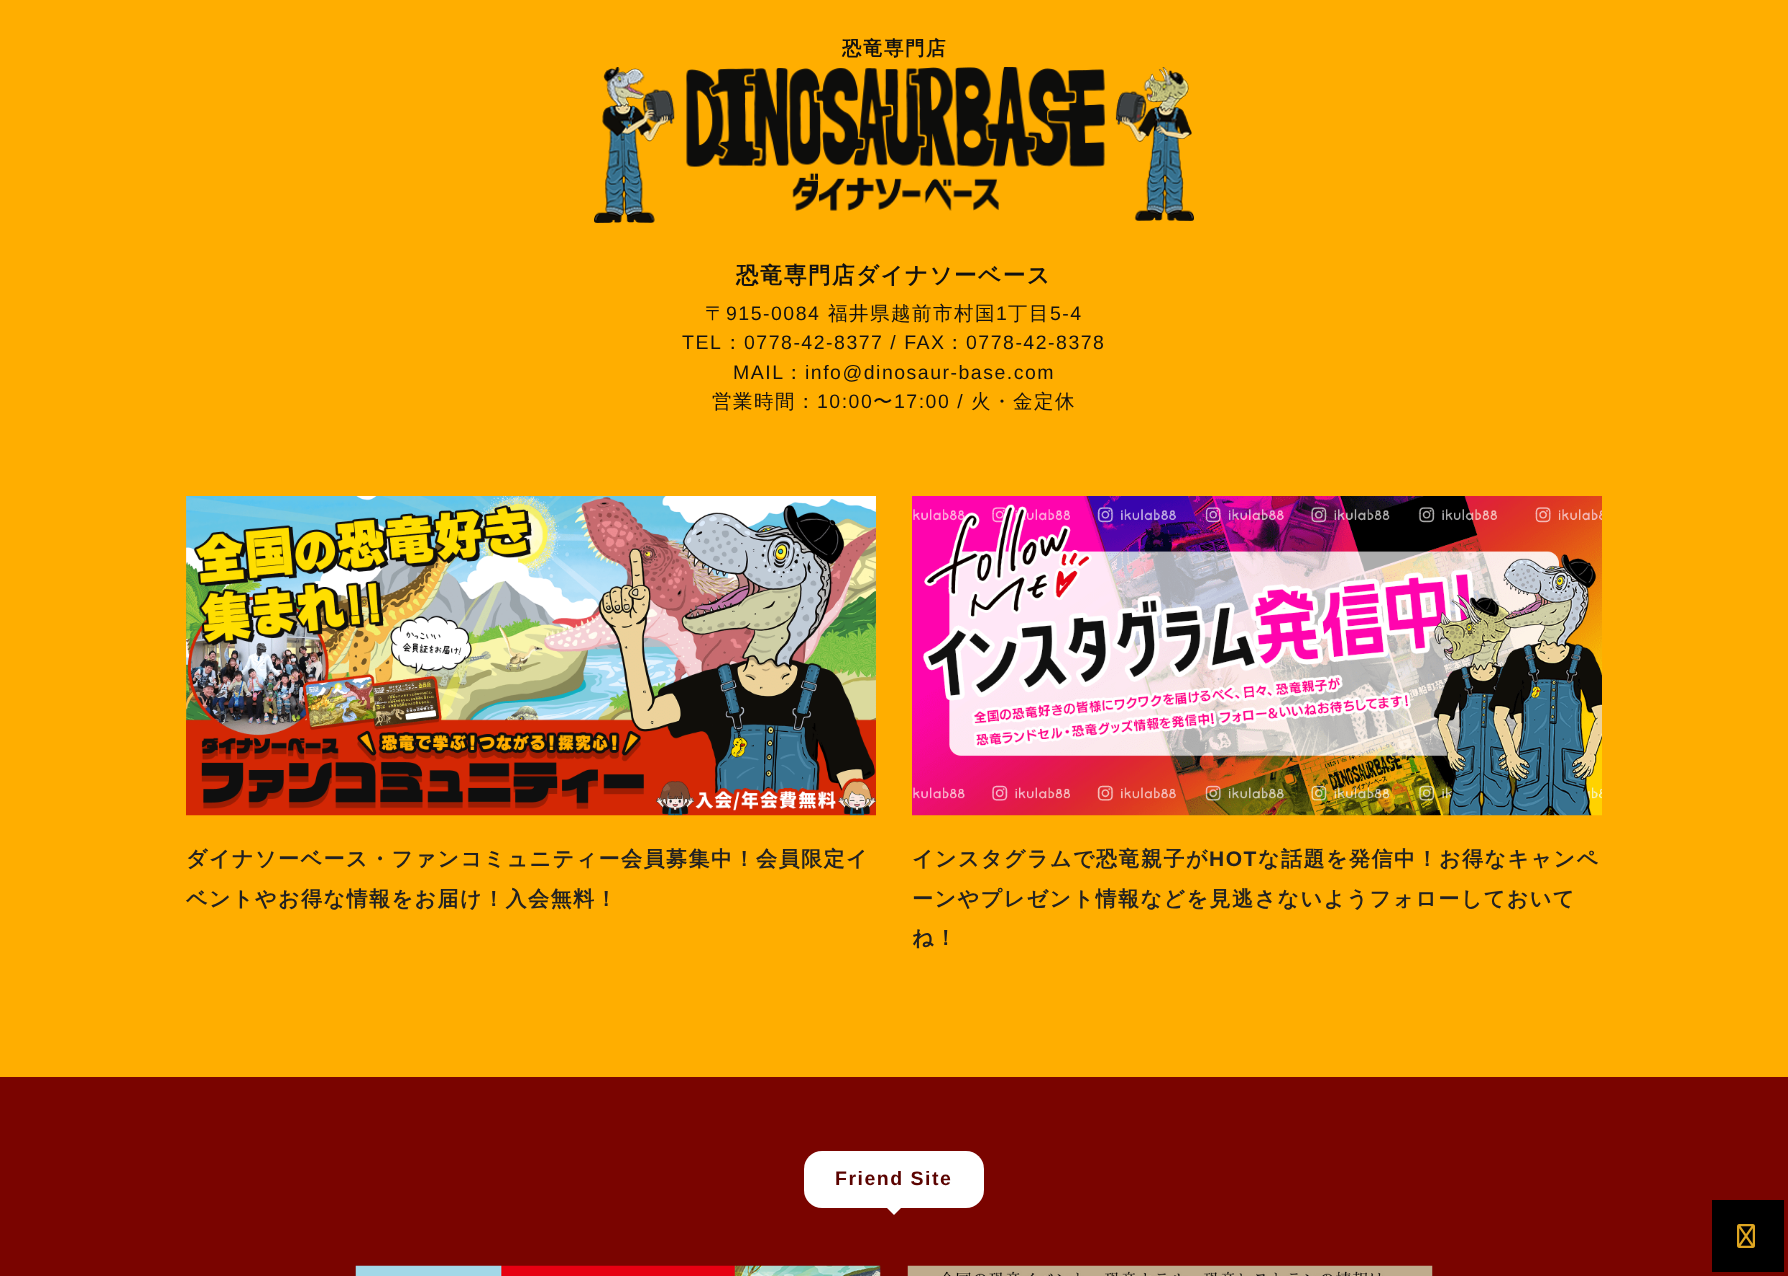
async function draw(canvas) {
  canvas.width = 1788;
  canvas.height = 1276;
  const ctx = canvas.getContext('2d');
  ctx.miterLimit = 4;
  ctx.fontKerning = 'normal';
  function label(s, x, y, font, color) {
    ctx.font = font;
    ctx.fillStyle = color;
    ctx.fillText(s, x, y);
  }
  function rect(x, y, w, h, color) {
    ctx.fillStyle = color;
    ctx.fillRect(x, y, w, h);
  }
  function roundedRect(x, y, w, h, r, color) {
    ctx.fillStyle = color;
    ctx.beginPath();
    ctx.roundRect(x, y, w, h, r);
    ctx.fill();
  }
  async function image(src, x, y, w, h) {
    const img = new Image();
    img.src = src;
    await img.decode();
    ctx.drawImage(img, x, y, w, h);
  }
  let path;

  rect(0, 0, 1788, 1276, '#ffae00');
  ctx.letterSpacing = '1.5px';
  label('恐竜専門店', 842, 55, 'bold 19.5px WenQuanYi Zen Hei', '#111');
  await image('assets/img1.png', 594, 67, 600, 156);
  label('恐竜専門店ダイナソーベース', 736, 283, 'bold 22.5px WenQuanYi Zen Hei', '#111');
  label('〒', 705, 320, '500 19.5px WenQuanYi Zen Hei', '#111');
  label('915-0084', 726, 320, '19.5px Liberation Sans', '#111');
  label('福井県越前市村国', 828, 320, '500 19.5px WenQuanYi Zen Hei', '#111');
  label('1', 996, 320, '19.5px Liberation Sans', '#111');
  label('丁目', 1008, 320, '500 19.5px WenQuanYi Zen Hei', '#111');
  label('5-4', 1050, 320, '19.5px Liberation Sans', '#111');
  label('TEL', 682, 349, '19.5px Liberation Sans', '#111');
  label('：', 723, 349, '500 19.5px WenQuanYi Zen Hei', '#111');
  label('0778-42-8377 / FAX', 744, 349, '19.5px Liberation Sans', '#111');
  label('：', 945, 349, '500 19.5px WenQuanYi Zen Hei', '#111');
  label('0778-42-8378', 966, 349, '19.5px Liberation Sans', '#111');
  label('MAIL', 733, 379, '19.5px Liberation Sans', '#111');
  label('：', 784, 379, '500 19.5px WenQuanYi Zen Hei', '#111');
  label('info@dinosaur-base.com', 805, 379, '19.5px Liberation Sans', '#111');
  label('営業時間：', 712, 408, '500 19.5px WenQuanYi Zen Hei', '#111');
  label('10:00', 817, 408, '19.5px Liberation Sans', '#111');
  label('〜', 873, 408, '500 19.5px WenQuanYi Zen Hei', '#111');
  label('17:00 /', 894, 408, '19.5px Liberation Sans', '#111');
  label('火・金定休', 971, 408, '500 19.5px WenQuanYi Zen Hei', '#111');
  await image('assets/img2.png', 186, 496, 690, 320);
  label('ダイナソーベース・ファンコミュニティー会員募集中！会員限定イ', 186, 866, 'bold 21px WenQuanYi Zen Hei', '#222');
  label('ベントやお得な情報をお届け！入会無料！', 186, 906, 'bold 21px WenQuanYi Zen Hei', '#222');
  await image('assets/img3.png', 912, 496, 690, 320);
  label('インスタグラムで恐竜親子が', 912, 866, 'bold 21px WenQuanYi Zen Hei', '#222');
  label('HOT', 1209, 866, 'bold 21px Liberation Sans', '#222');
  label('な話題を発信中！お得なキャンペ', 1258, 866, 'bold 21px WenQuanYi Zen Hei', '#222');
  label('ーンやプレゼント情報などを見逃さないようフォローしておいて', 912, 906, 'bold 21px WenQuanYi Zen Hei', '#222');
  label('ね！', 912, 945, 'bold 21px WenQuanYi Zen Hei', '#222');
  rect(0, 1077, 1788, 199, '#7a0400');
  roundedRect(804, 1151, 180, 57, 18, '#fff');
  label('Friend Site', 835, 1185, 'bold 19.5px Liberation Sans', '#5b0300');
  ctx.fillStyle = '#fff';
  path = new Path2D('M886.5 1207.5H901.5L894 1215Z');
  ctx.fill(path);
  await image('assets/img4.png', 355, 1265, 526, 11);
  await image('assets/img5.png', 907, 1265, 526, 11);
  rect(1712, 1200, 72, 72, '#000');
  await image('assets/img6.png', 1737, 1224, 18, 24);
}

draw(document.querySelector('canvas'));
